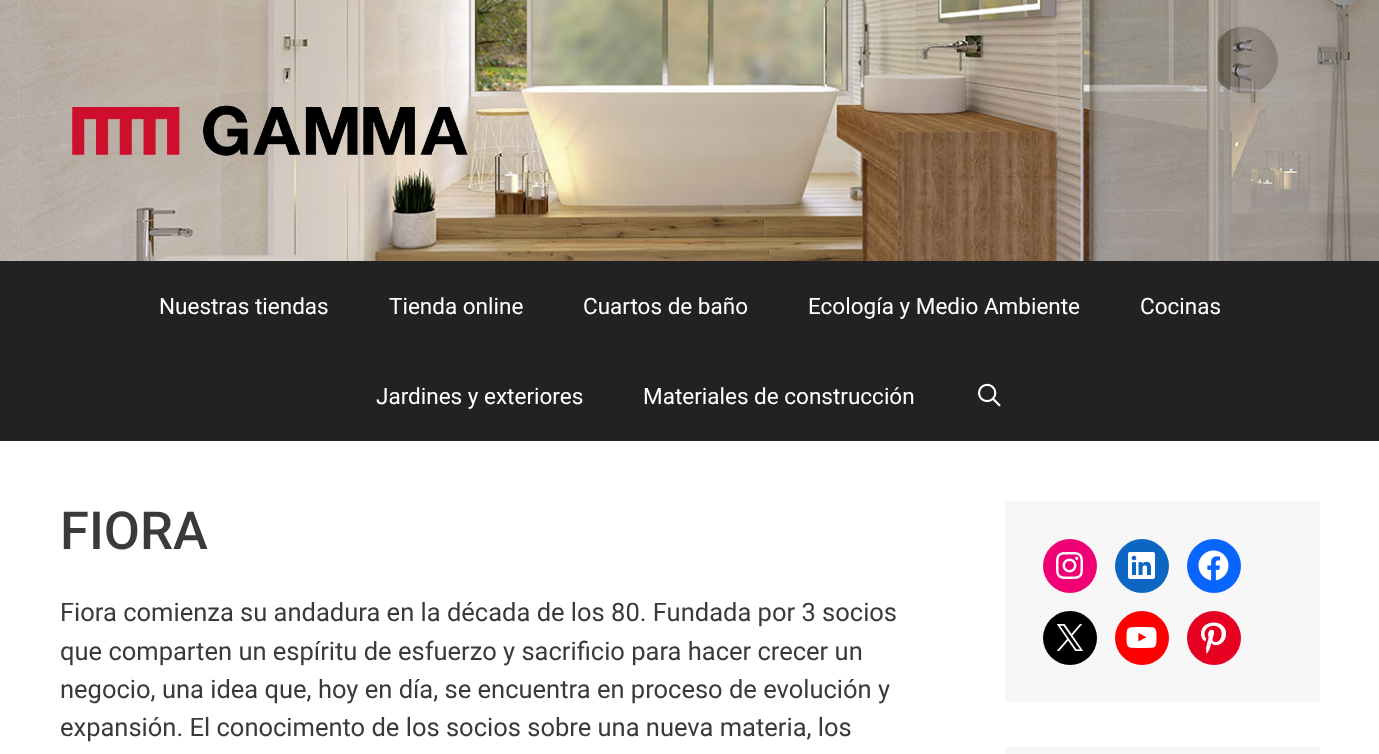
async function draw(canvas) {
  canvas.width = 1379;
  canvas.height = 754;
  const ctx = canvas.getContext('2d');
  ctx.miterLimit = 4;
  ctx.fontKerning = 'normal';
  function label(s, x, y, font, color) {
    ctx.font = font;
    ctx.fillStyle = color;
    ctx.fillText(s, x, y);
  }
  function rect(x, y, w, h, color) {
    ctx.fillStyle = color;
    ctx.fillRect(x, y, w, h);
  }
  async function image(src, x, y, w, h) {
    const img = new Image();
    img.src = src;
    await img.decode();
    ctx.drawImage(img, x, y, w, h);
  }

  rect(0, 0, 1379, 754, '#fff');
  await image('assets/img1.png', 0, 0, 1379, 261);
  await image('assets/img2.png', 72, 105, 396, 51);
  rect(0, 261, 1379, 180, '#222');
  label('Nuestras tiendas', 159, 314, '22.5px Roboto', '#fff');
  label('Tienda online', 389, 314, '22.5px Roboto', '#fff');
  label('Cuartos de baño', 583, 314, '22.5px Roboto', '#fff');
  label('Ecología y Medio Ambiente', 808, 314, '22.5px Roboto', '#fff');
  label('Cocinas', 1140, 314, '22.5px Roboto', '#fff');
  label('Jardines y exteriores', 376, 404, '22.5px Roboto', '#fff');
  label('Materiales de construcción', 643, 404, '22.5px Roboto', '#fff');
  await image('assets/img3.png', 978, 383, 23, 24);
  label('FIORA', 60, 549, '500 52.5px Roboto', '#3a3a3a');
  label('Fiora comienza su andadura en la década de los 80. Fundada por 3 socios', 60, 621, '25.5px Roboto', '#3a3a3a');
  label('que comparten un espíritu de esfuerzo y sacrificio para hacer crecer un', 60, 660, '25.5px Roboto', '#3a3a3a');
  label('negocio, una idea que, hoy en día, se encuentra en proceso de evolución y', 60, 698, '25.5px Roboto', '#3a3a3a');
  label('expansión. El conocimento de los socios sobre una nueva materia, los', 60, 736, '25.5px Roboto', '#3a3a3a');
  rect(1005, 501, 315, 201, '#f7f7f7');
  ctx.fillStyle = '#f00075';
  ctx.beginPath();
  ctx.arc(1070, 566, 27, 0, 2 * Math.PI);
  ctx.fill();
  await image('assets/img4.png', 1056, 552, 27, 27);
  ctx.fillStyle = '#0d66c2';
  ctx.beginPath();
  ctx.arc(1142, 566, 27, 0, 2 * Math.PI);
  ctx.fill();
  await image('assets/img5.png', 1128, 552, 27, 27);
  ctx.fillStyle = '#0866ff';
  ctx.beginPath();
  ctx.arc(1214, 566, 27, 0, 2 * Math.PI);
  ctx.fill();
  await image('assets/img6.png', 1198, 550, 31, 31);
  ctx.fillStyle = '#000';
  ctx.beginPath();
  ctx.arc(1070, 638, 27, 0, 2 * Math.PI);
  ctx.fill();
  await image('assets/img7.png', 1056, 624, 28, 27);
  ctx.fillStyle = '#f00';
  ctx.beginPath();
  ctx.arc(1142, 638, 27, 0, 2 * Math.PI);
  ctx.fill();
  await image('assets/img8.png', 1126, 626, 31, 23);
  ctx.fillStyle = '#e60122';
  ctx.beginPath();
  ctx.arc(1214, 638, 27, 0, 2 * Math.PI);
  ctx.fill();
  await image('assets/img9.png', 1200, 622, 27, 32);
  rect(1005, 747, 315, 7, '#f7f7f7');
}

draw(document.querySelector('canvas'));
